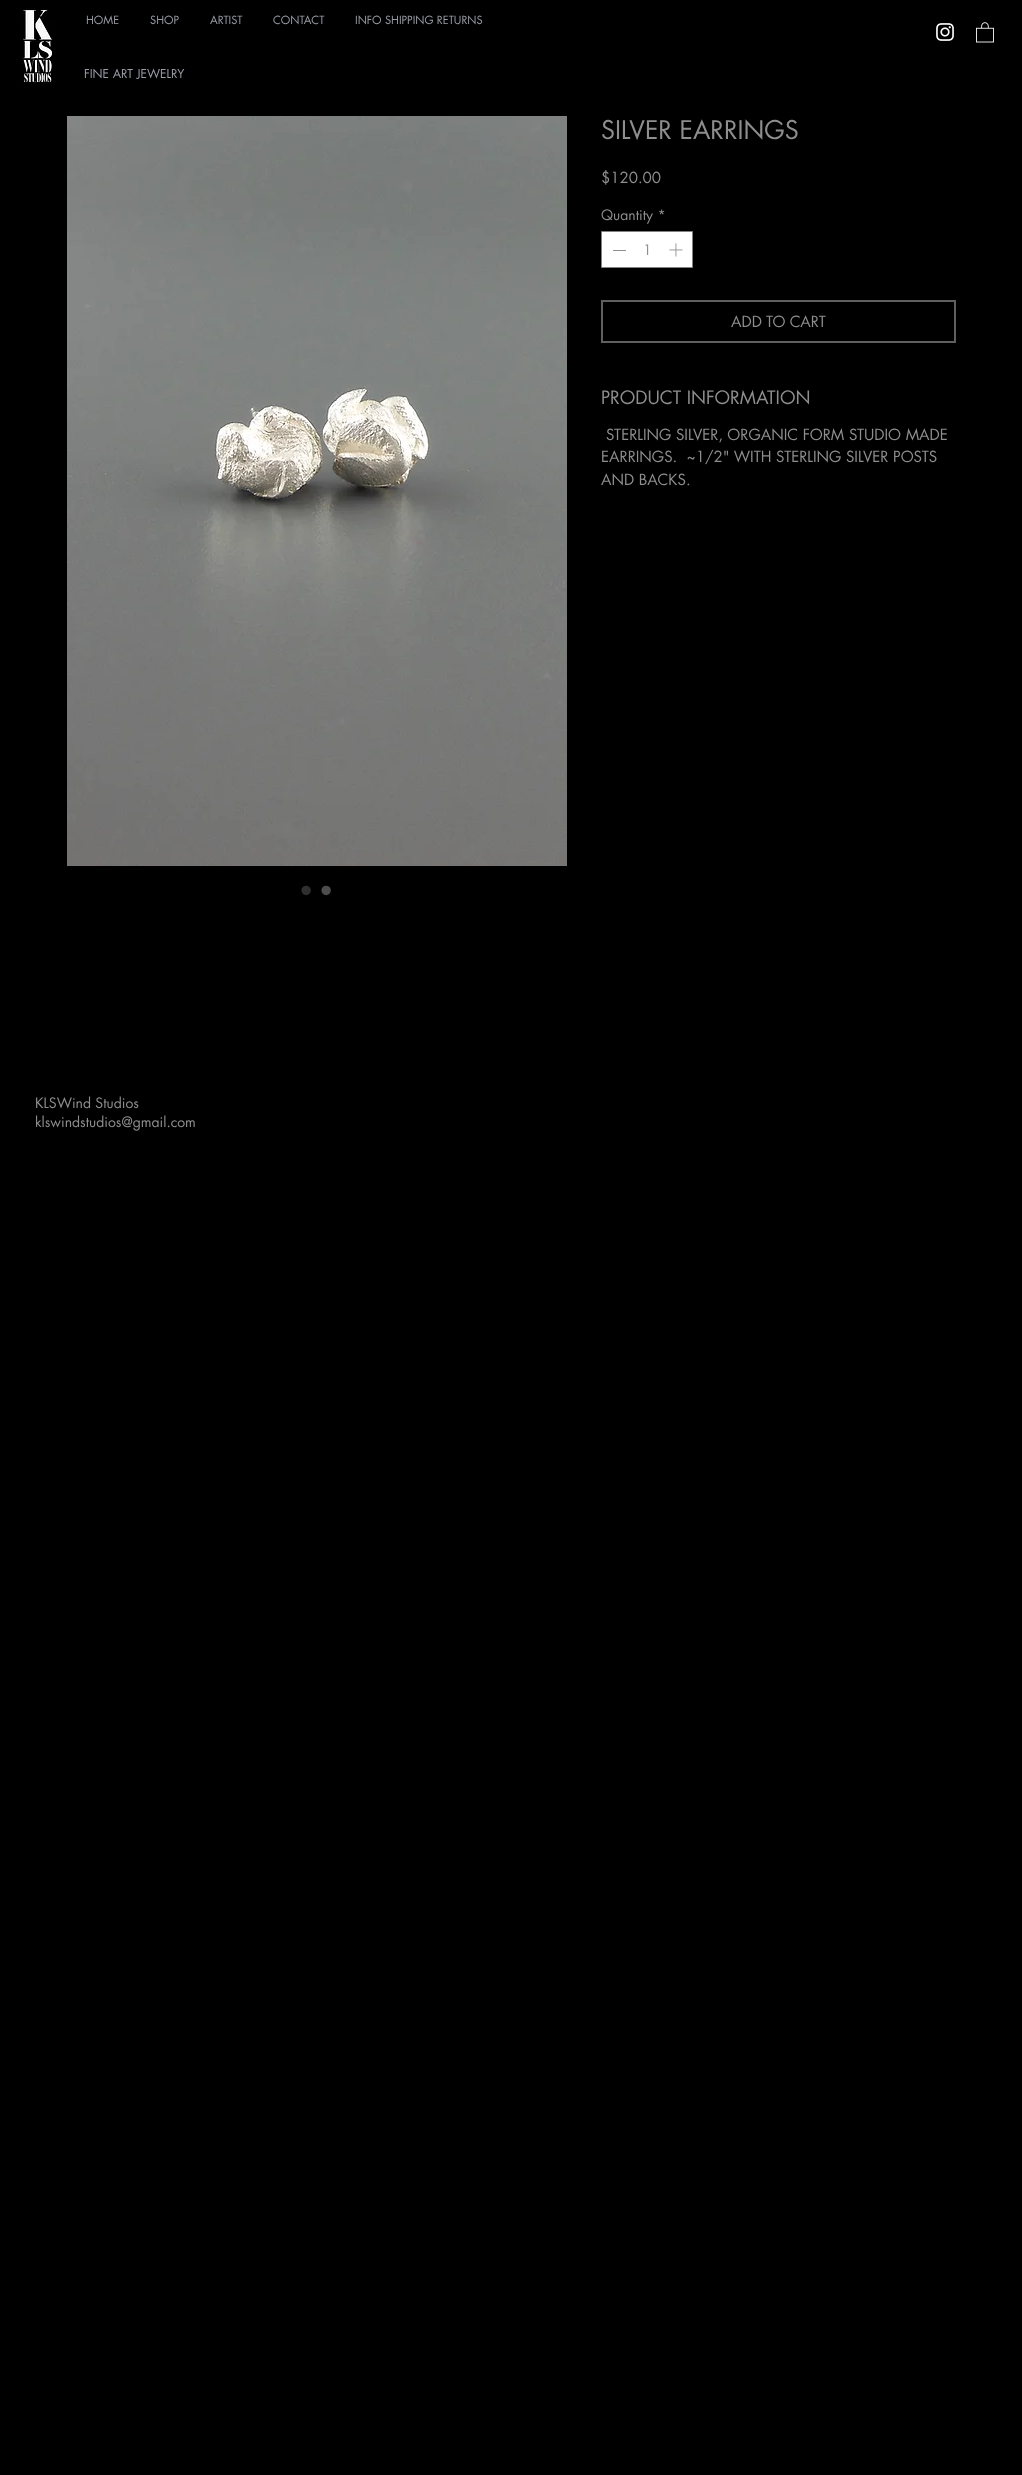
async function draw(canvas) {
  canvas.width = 1022;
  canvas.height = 2475;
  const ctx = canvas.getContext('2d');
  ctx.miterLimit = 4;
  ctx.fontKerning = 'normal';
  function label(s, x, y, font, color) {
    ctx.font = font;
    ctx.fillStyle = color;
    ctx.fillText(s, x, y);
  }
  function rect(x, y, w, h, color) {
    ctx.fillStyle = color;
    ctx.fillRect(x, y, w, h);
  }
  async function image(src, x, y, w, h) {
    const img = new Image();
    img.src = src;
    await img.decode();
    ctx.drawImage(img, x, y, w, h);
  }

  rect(0, 0, 1022, 2475, '#000');
  await image('assets/img1.png', 20, 8, 33, 76);
  label('HOME', 86, 24, '11px futura', '#999ca6');
  label('SHOP', 150, 24, '11px futura', '#999ca6');
  label('ARTIST', 210, 24, '11px futura', '#999ca6');
  label('CONTACT', 273, 24, '11px futura', '#999ca6');
  label('INFO SHIPPING RETURNS', 355, 24, '11px futura', '#999ca6');
  await image('assets/img2.png', 936, 23, 18, 18);
  await image('assets/img3.png', 976, 22, 18, 21);
  label('FINE ART JEWELRY', 84, 78, '12px futura', '#999ca6');
  label('SILVER EARRINGS', 601, 139, '25px futura', '#8e8e8f');
  label('$120.00', 601, 183, '15px futura', '#8e8e8f');
  label('Quantity *', 601, 220, '14px futura', '#8e8e8f');
  ctx.fillStyle = '#fff';
  ctx.beginPath();
  ctx.rect(601.5, 231.5, 91, 36);
  ctx.fill();
  ctx.strokeStyle = '#828283';
  ctx.stroke();
  rect(613, 250, 13, 1, '#8e8e8f');
  label('1', 643, 255, '14px futura', '#8e8e8f');
  await image('assets/img4.png', 669, 243, 14, 14);
  ctx.strokeStyle = '#5f5f5f';
  ctx.lineWidth = 2;
  ctx.strokeRect(602, 301, 353, 41);
  label('ADD TO CART', 731, 327, '15px futura', '#8e8e8f');
  label('PRODUCT INFORMATION', 601, 404, '18px futura', '#8e8e8f');
  label('STERLING SILVER, ORGANIC FORM STUDIO MADE', 606, 440, '15px futura', '#8e8e8f');
  label('EARRINGS.  ~1/2" WITH STERLING SILVER POSTS', 601, 462, '15px futura', '#8e8e8f');
  label('AND BACKS.', 601, 485, '15px futura', '#8e8e8f');
  await image('assets/img5.png', 67, 116, 500, 750);
  label('•', 300, 902, '35px Liberation Sans', '#2f2f30');
  label('•', 320, 902, '35px Liberation Sans', '#4d4d4d');
  label('KLSWind Studios', 35, 1108, '14px futura', '#8e8e8f');
  label('klswindstudios@gmail.com', 35, 1127, '14px futura', '#8e8e8f');
}

draw(document.querySelector('canvas'));
